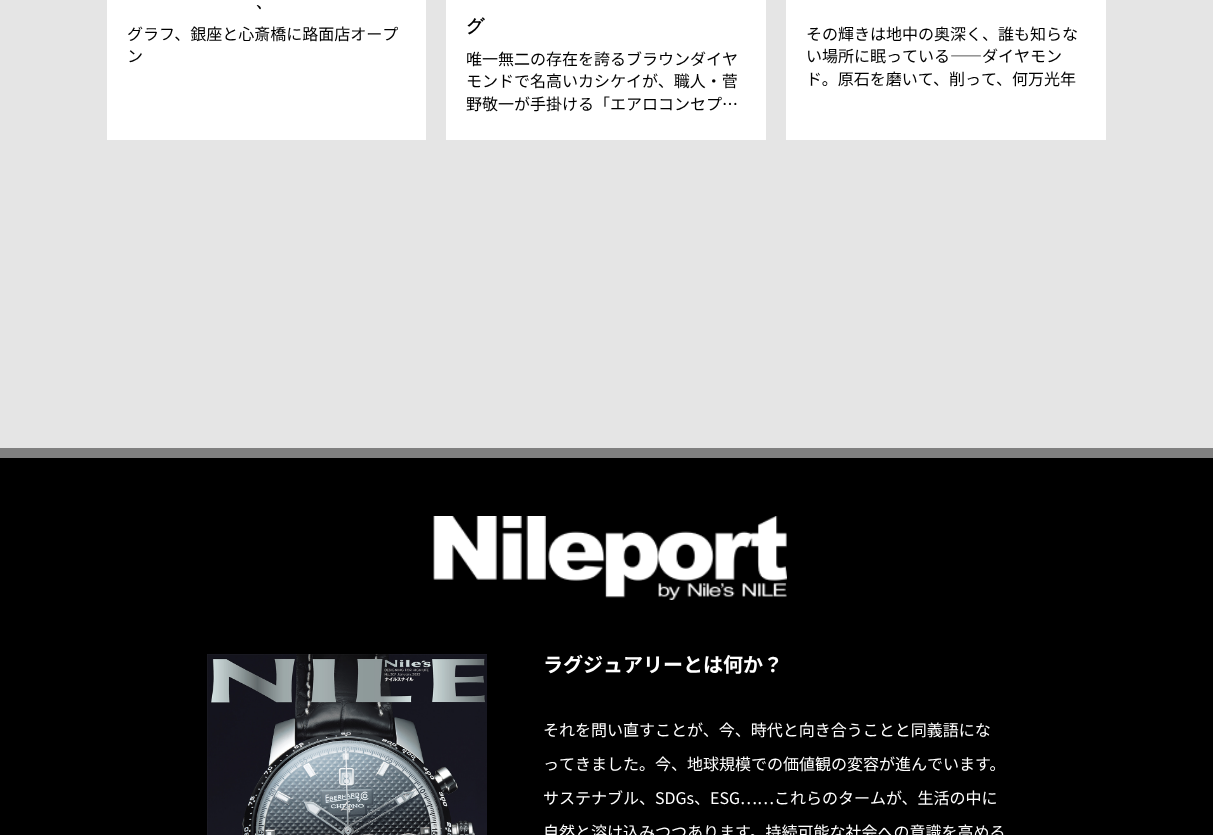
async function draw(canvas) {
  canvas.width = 1213;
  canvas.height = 835;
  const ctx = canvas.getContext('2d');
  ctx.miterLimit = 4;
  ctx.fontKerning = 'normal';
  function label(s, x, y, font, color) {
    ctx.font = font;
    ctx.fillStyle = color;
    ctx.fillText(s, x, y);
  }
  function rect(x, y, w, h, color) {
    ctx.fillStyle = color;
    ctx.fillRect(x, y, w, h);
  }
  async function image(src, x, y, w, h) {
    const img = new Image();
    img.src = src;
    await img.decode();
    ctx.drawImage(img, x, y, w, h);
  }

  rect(0, 0, 1213, 835, '#e5e5e5');
  rect(107, 0, 319, 140, '#fff');
  label('、', 255, 7, 'bold 18px WenQuanYi Zen Hei', '#000');
  label('グラフ、銀座と心斎橋に路面店オープ', 127, 40, '16px Noto Sans JP', '#000');
  label('ン', 127, 62, '16px Noto Sans JP', '#000');
  rect(446, 0, 320, 140, '#fff');
  label('グ', 466, 32, 'bold 18px WenQuanYi Zen Hei', '#000');
  label('唯一無二の存在を誇るブラウンダイヤ', 466, 65, '16px Noto Sans JP', '#000');
  label('モンドで名高いカシケイが、職人・菅', 466, 87, '16px Noto Sans JP', '#000');
  label('野敬一が手掛ける「エアロコンセプ…', 466, 110, '16px Noto Sans JP', '#000');
  rect(786, 0, 320, 140, '#fff');
  label('その輝きは地中の奥深く、誰も知らな', 806, 40, '16px Noto Sans JP', '#000');
  label('い場所に眠っている――ダイヤモン', 806, 62, '16px Noto Sans JP', '#000');
  label('ド。原石を磨いて、削って、何万光年', 806, 85, '16px Noto Sans JP', '#000');
  rect(0, 458, 1213, 377, '#000');
  rect(0, 448, 1213, 10, '#808080');
  await image('assets/img1.png', 433, 516, 354, 84);
  await image('assets/img2.png', 207, 654, 280, 181);
  label('ラグジュアリーとは何か？', 543, 672, 'bold 20px Noto Sans JP', '#fff');
  label('それを問い直すことが、今、時代と向き合うことと同義語にな', 543, 736, '16px Noto Sans JP', '#fff');
  label('ってきました。今、地球規模での価値観の変容が進んでいます。', 543, 770, '16px Noto Sans JP', '#fff');
  label('サステナブル、SDGs、ESG……これらのタームが、生活の中に', 543, 804, '16px Noto Sans JP', '#fff');
  label('自然と溶け込みつつあります。持続可能な社会への意識を高める', 543, 838, '16px Noto Sans JP', '#fff');
}

draw(document.querySelector('canvas'));
